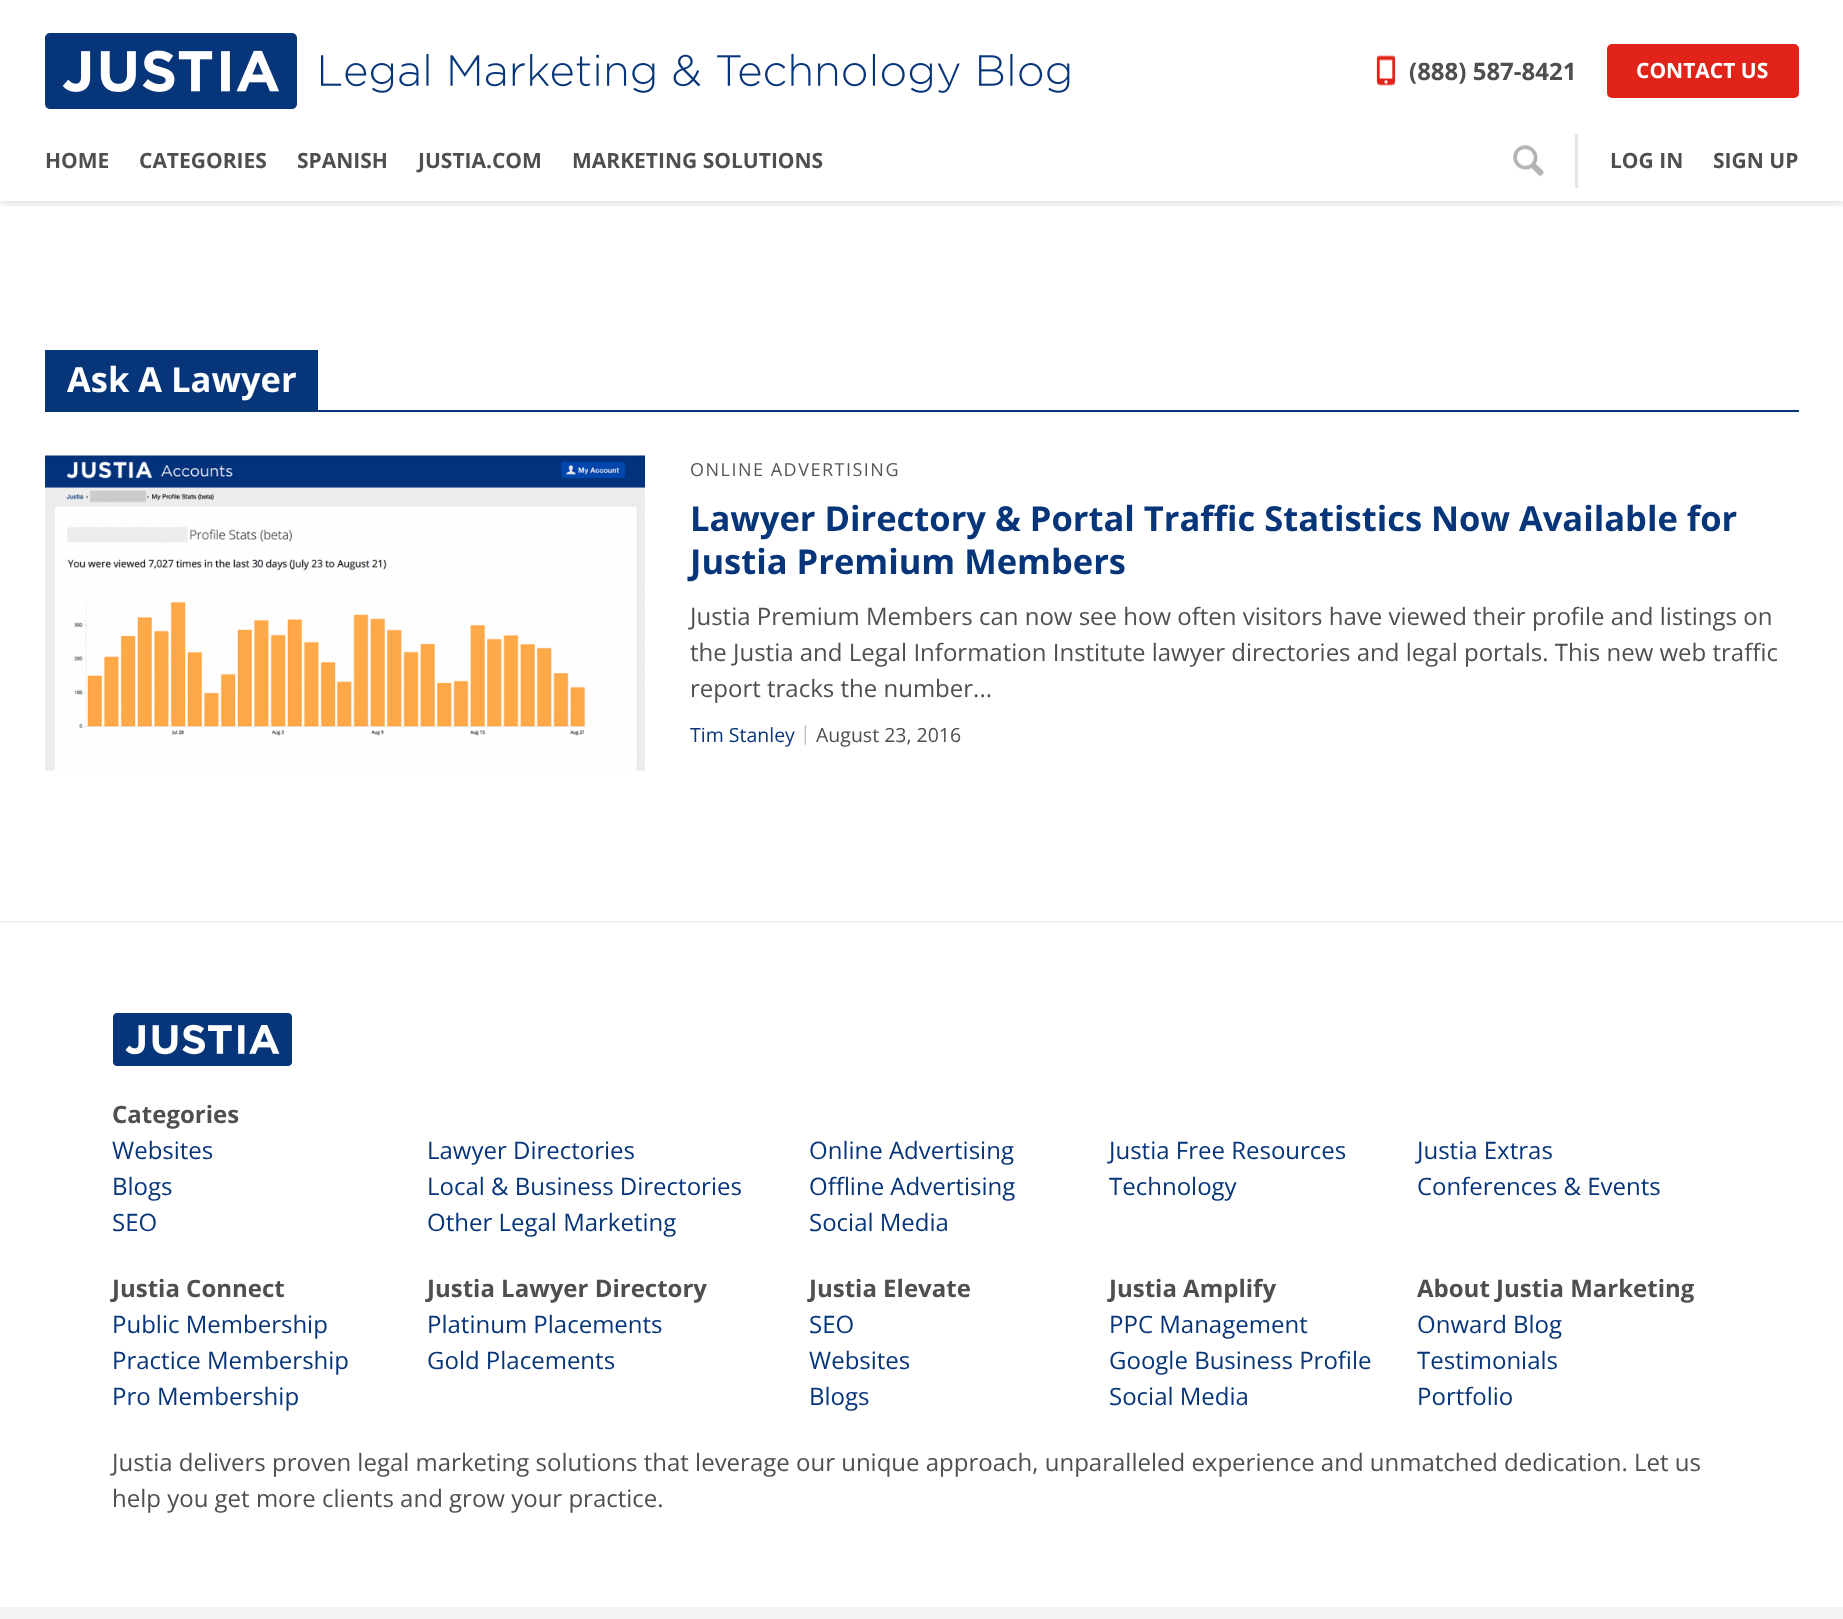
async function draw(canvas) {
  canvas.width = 1843;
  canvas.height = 1619;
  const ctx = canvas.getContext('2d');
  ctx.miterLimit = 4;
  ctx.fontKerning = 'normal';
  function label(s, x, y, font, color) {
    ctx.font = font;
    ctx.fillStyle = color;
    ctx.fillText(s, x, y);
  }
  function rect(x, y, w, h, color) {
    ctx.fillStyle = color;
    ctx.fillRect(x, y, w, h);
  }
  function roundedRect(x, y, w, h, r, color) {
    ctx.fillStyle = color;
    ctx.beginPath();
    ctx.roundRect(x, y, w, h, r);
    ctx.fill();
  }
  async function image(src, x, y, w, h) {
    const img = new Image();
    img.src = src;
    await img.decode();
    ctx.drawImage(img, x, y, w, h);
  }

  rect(0, 0, 1843, 1619, '#fff');
  ctx.save();
  ctx.beginPath();
  ctx.rect(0, 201, 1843, 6);
  ctx.clip();
  ctx.fillStyle = '#00000026';
  ctx.filter = 'blur(4px)';
  ctx.beginPath();
  ctx.rect(0, 2, 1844, 201);
  ctx.fill();
  ctx.filter = 'none';
  ctx.restore();
  await image('assets/img1.png', 45, 33, 252, 76);
  await image('assets/img2.png', 321, 53, 749, 40);
  await image('assets/img3.png', 1376, 55, 20, 31);
  label('(888) 587-8421', 1409, 80, 'bold 24px Open Sans', '#4f4f4f');
  roundedRect(1607, 44, 192, 54, 5, '#e2231a');
  label('CONTACT US', 1636, 78, 'bold 21px Open Sans', '#fff');
  label('HOME', 45, 168, 'bold 21px Open Sans', '#4f4f4f');
  label('CATEGORIES', 139, 168, 'bold 21px Open Sans', '#4f4f4f');
  label('SPANISH', 297, 168, 'bold 21px Open Sans', '#4f4f4f');
  label('JUSTIA.COM', 418, 168, 'bold 21px Open Sans', '#4f4f4f');
  label('MARKETING SOLUTIONS', 572, 168, 'bold 21px Open Sans', '#4f4f4f');
  await image('assets/img4.png', 1513, 144, 31, 33);
  rect(1575, 134, 3, 54, '#e5e5e5');
  label('LOG IN', 1610, 168, 'bold 21px Open Sans', '#4f4f4f');
  label('SIGN UP', 1713, 168, 'bold 21px Open Sans', '#4f4f4f');
  rect(45, 410, 1754, 2, '#06357a');
  rect(45, 350, 273, 60, '#06357a');
  label('Ask A Lawyer', 67, 392, 'bold 34.5px Open Sans', '#fff');
  await image('assets/img5.png', 45, 455, 600, 316);
  ctx.letterSpacing = '1.5px';
  label('ONLINE ADVERTISING', 690, 476, '18px Open Sans', '#565656');
  ctx.letterSpacing = '0px';
  label('Lawyer Directory & Portal Traffic Statistics Now Available for', 690, 531, 'bold 34.5px Open Sans', '#06357a');
  label('Justia Premium Members', 690, 574, 'bold 34.5px Open Sans', '#06357a');
  label('Justia Premium Members can now see how often visitors have viewed their profile and listings on', 690, 625, '24px Open Sans', '#4f4f4f');
  label('the Justia and Legal Information Institute lawyer directories and legal portals. This new web traffic', 690, 661, '24px Open Sans', '#4f4f4f');
  label('report tracks the number...', 690, 697, '24px Open Sans', '#4f4f4f');
  label('Tim Stanley', 690, 742, '19.5px Open Sans', '#06357a');
  label('|', 800, 740, '19.5px Open Sans', '#c0c0c0');
  label('August 23, 2016', 816, 742, '19.5px Open Sans', '#4f4f4f');
  rect(0, 921, 1843, 2, '#f1f1f1');
  await image('assets/img6.png', 113, 1013, 179, 53);
  label('Categories', 112, 1123, 'bold 24px Open Sans', '#4f4f4f');
  label('Websites', 112, 1159, '24px Open Sans', '#06357a');
  label('Blogs', 112, 1195, '24px Open Sans', '#06357a');
  label('SEO', 112, 1231, '24px Open Sans', '#06357a');
  label('Lawyer Directories', 427, 1159, '24px Open Sans', '#06357a');
  label('Local & Business Directories', 427, 1195, '24px Open Sans', '#06357a');
  label('Other Legal Marketing', 427, 1231, '24px Open Sans', '#06357a');
  label('Online Advertising', 809, 1159, '24px Open Sans', '#06357a');
  label('Offline Advertising', 809, 1195, '24px Open Sans', '#06357a');
  label('Social Media', 809, 1231, '24px Open Sans', '#06357a');
  label('Justia Free Resources', 1109, 1159, '24px Open Sans', '#06357a');
  label('Technology', 1109, 1195, '24px Open Sans', '#06357a');
  label('Justia Extras', 1417, 1159, '24px Open Sans', '#06357a');
  label('Conferences & Events', 1417, 1195, '24px Open Sans', '#06357a');
  label('Justia Connect', 112, 1297, 'bold 24px Open Sans', '#4f4f4f');
  label('Public Membership', 112, 1333, '24px Open Sans', '#06357a');
  label('Practice Membership', 112, 1369, '24px Open Sans', '#06357a');
  label('Pro Membership', 112, 1405, '24px Open Sans', '#06357a');
  label('Justia Lawyer Directory', 427, 1297, 'bold 24px Open Sans', '#4f4f4f');
  label('Platinum Placements', 427, 1333, '24px Open Sans', '#06357a');
  label('Gold Placements', 427, 1369, '24px Open Sans', '#06357a');
  label('Justia Elevate', 809, 1297, 'bold 24px Open Sans', '#4f4f4f');
  label('SEO', 809, 1333, '24px Open Sans', '#06357a');
  label('Websites', 809, 1369, '24px Open Sans', '#06357a');
  label('Blogs', 809, 1405, '24px Open Sans', '#06357a');
  label('Justia Amplify', 1109, 1297, 'bold 24px Open Sans', '#4f4f4f');
  label('PPC Management', 1109, 1333, '24px Open Sans', '#06357a');
  label('Google Business Profile', 1109, 1369, '24px Open Sans', '#06357a');
  label('Social Media', 1109, 1405, '24px Open Sans', '#06357a');
  label('About Justia Marketing', 1417, 1297, 'bold 24px Open Sans', '#4f4f4f');
  label('Onward Blog', 1417, 1333, '24px Open Sans', '#06357a');
  label('Testimonials', 1417, 1369, '24px Open Sans', '#06357a');
  label('Portfolio', 1417, 1405, '24px Open Sans', '#06357a');
  label('Justia delivers proven legal marketing solutions that leverage our unique approach, unparalleled experience and unmatched dedication. Let us', 112, 1471, '24px Open Sans', '#4f4f4f');
  label('help you get more clients and grow your practice.', 112, 1507, '24px Open Sans', '#4f4f4f');
  rect(0, 1609, 1843, 10, '#f4f4f4');
  rect(0, 1607, 1843, 2, '#f1f1f1');
}

draw(document.querySelector('canvas'));
